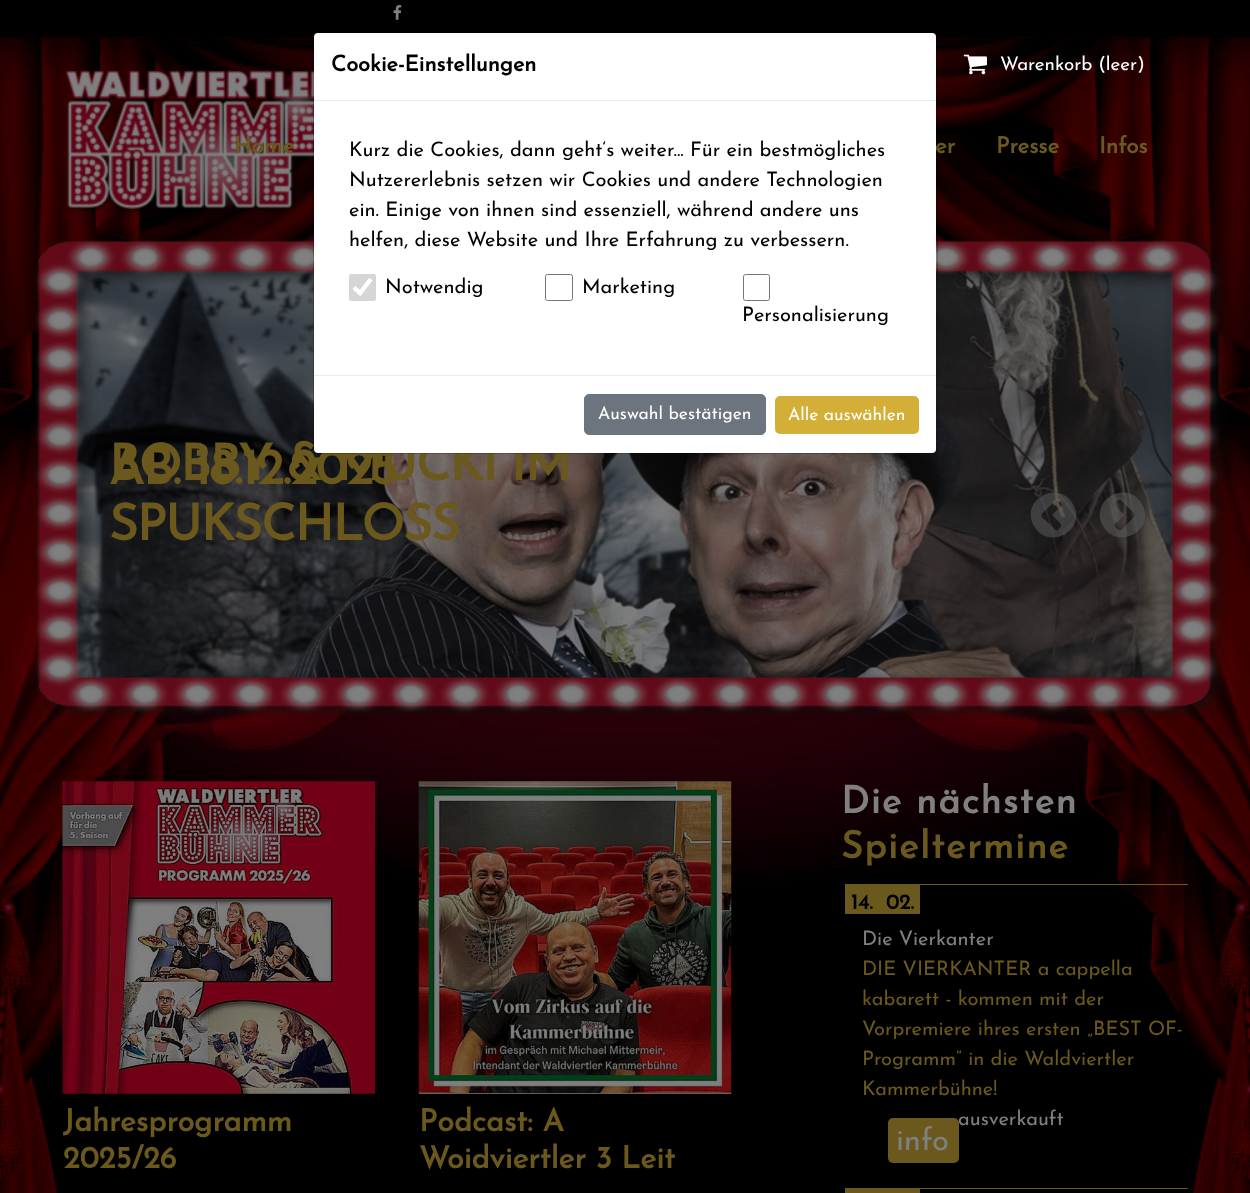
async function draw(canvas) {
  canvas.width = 1250;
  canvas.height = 1193;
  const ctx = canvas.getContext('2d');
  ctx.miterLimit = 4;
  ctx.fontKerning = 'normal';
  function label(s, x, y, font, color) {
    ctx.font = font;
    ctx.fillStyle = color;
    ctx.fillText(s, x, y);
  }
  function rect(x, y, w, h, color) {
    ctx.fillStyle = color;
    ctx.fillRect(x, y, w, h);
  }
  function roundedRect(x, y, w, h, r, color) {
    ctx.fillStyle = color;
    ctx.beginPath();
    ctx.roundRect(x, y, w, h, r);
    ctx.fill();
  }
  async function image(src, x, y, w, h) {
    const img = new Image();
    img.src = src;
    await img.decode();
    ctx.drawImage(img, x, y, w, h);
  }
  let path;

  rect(0, 0, 1250, 1193, '#000');
  await image('assets/img1.png', 0, 34, 625, 1159);
  await image('assets/img2.png', 625, 34, 625, 1159);
  await image('assets/img7.png', 75, 270, 1099, 408);
  ctx.letterSpacing = '-1.25px';
  label('AB. 18.12.2025', 109, 484, 'bold 50px Josefin Sans', '#6a581c');
  label('BOBBY & MUCKI IM', 109, 480, 'bold 50px Josefin Sans', '#6a581c');
  label('SPUKSCHLOSS', 109, 540, 'bold 50px Josefin Sans', '#6a581c');
  await image('assets/img6.png', 30, 236, 1199, 484);
  roundedRect(314, 33, 622, 420, 4, '#fff');
  await image('assets/img5.png', 64, 69, 250, 144);
  ctx.letterSpacing = '0px';
  label('er', 935, 153, 'bold 22.5px Josefin Sans', '#6a581c');
  ctx.beginPath();
  ctx.roundRect(313.5, 31.5, 624, 422, 4.5);
  ctx.strokeStyle = '#00000033';
  ctx.stroke();
  rect(314, 100, 622, 1, '#e9ecef');
  label('Cookie-Einstellungen', 331, 71, 'bold 21.9px Josefin Sans', '#000');
  label('Kurz die Cookies, dann geht‘s weiter... Für ein bestmögliches', 349, 156, '100 20px Josefin Sans', '#000');
  label('Nutzererlebnis setzen wir Cookies und andere Technologien', 349, 186, '100 20px Josefin Sans', '#000');
  label('ein. Einige von ihnen sind essenziell, während andere uns', 349, 216, '100 20px Josefin Sans', '#000');
  label('helfen, diese Website und Ihre Erfahrung zu verbessern.', 349, 246, '100 20px Josefin Sans', '#000');
  roundedRect(349, 274, 27, 27, 2.5, '#d6d6d6');
  path = new Path2D('M354 287.5L360 293L371 279');
  ctx.strokeStyle = '#fff';
  ctx.lineWidth = 4.4;
  ctx.stroke(path);
  label('Notwendig', 385, 293, '100 20px Josefin Sans', '#000');
  ctx.beginPath();
  ctx.roundRect(545.5, 274.5, 27, 26, 2);
  ctx.strokeStyle = '#767676';
  ctx.lineWidth = 1;
  ctx.stroke();
  label('Marketing', 582, 293, '100 20px Josefin Sans', '#000');
  ctx.beginPath();
  ctx.roundRect(743.5, 274.5, 26, 26, 2);
  ctx.stroke();
  label('Personalisierung', 742, 321, '100 20px Josefin Sans', '#000');
  rect(314, 375, 622, 1, '#e9ecef');
  ctx.fillStyle = '#6c757d';
  ctx.beginPath();
  ctx.roundRect(584.5, 394.5, 181, 40, 4.5);
  ctx.fill();
  ctx.strokeStyle = '#6c757d';
  ctx.stroke();
  label('Auswahl bestätigen', 598, 419, '100 17.5px Josefin Sans', '#fff');
  roundedRect(775, 396, 144, 38, 5, '#d4af37');
  label('Alle auswählen', 788, 420, '100 17.5px Josefin Sans', '#fff');
  await image('assets/img3.png', 393, 5, 9, 15);
  await image('assets/img4.png', 963, 54, 24, 21);
  label('Warenkorb (leer)', 1000, 70, '100 18.75px Josefin Sans', '#fff');
  label('Home', 234, 153, 'bold 22.5px Josefin Sans', '#6a581c');
  label('Presse', 996, 153, 'bold 22.5px Josefin Sans', '#6a581c');
  label('Infos', 1099, 153, 'bold 22.5px Josefin Sans', '#6a581c');
  ctx.fillStyle = '#60606080';
  path = new Path2D('M1058 530C1061 526 1063 526 1059 522L1052 515L1061 506C1063 504 1060 502 1059 501C1056 499 1056 500 1053 503L1049 507C1038 518 1039 514 1051 525C1052 526 1056 532 1058 530ZM1073 504C1088 529 1049 552 1034 526C1019 501 1058 478 1073 504Z');
  ctx.fill(path);
  path = new Path2D('M1121 530L1132 519C1136 515 1136 515 1132 511L1125 505C1122 501 1121 498 1117 501C1114 504 1114 504 1117 508L1124 515L1118 521C1115 524 1113 525 1116 528C1117 529 1119 531 1121 530ZM1142 504C1157 529 1118 552 1103 526C1088 501 1127 478 1142 504Z');
  ctx.fill(path);
  await image('assets/img8.png', 62, 781, 313, 313);
  label('Jahresprogramm', 63, 1131, 'bold 30.6px Josefin Sans', '#6a581c');
  label('2025/26', 63, 1168, 'bold 30.6px Josefin Sans', '#6a581c');
  await image('assets/img9.png', 418, 781, 314, 313);
  label('Podcast: A', 419, 1131, 'bold 30.6px Josefin Sans', '#6a581c');
  label('Woidviertler 3 Leit', 419, 1168, 'bold 30.6px Josefin Sans', '#6a581c');
  ctx.letterSpacing = '1.5px';
  label('Die nächsten', 841, 813, 'bold 37.5px Josefin Sans', '#808080');
  label('Spieltermine', 841, 858, 'bold 37.5px Josefin Sans', '#6a581c');
  rect(845, 884, 343, 1, '#6a581c');
  rect(845, 885, 75, 29, '#6a581c');
  ctx.letterSpacing = '0px';
  label('14.', 851, 909, 'bold 21px Josefin Sans', '#000');
  label('02.', 886, 909, 'bold 21px Josefin Sans', '#000');
  label('Die Vierkanter', 862, 945, '100 20px Josefin Sans', '#808080');
  label('DIE VIERKANTER a cappella', 862, 975, '100 20px Josefin Sans', '#6a581c');
  label('kabarett - kommen mit der', 862, 1005, '100 20px Josefin Sans', '#6a581c');
  label('Vorpremiere ihres ersten „BEST OF-', 862, 1035, '100 20px Josefin Sans', '#6a581c');
  label('Programm“ in die Waldviertler', 862, 1065, '100 20px Josefin Sans', '#6a581c');
  label('Kammerbühne!', 862, 1095, '100 20px Josefin Sans', '#6a581c');
  label('ausverkauft', 958, 1125, '100 20px Josefin Sans', '#808080');
  roundedRect(888, 1118, 71, 45, 5, '#6a581c');
  label('info', 896, 1150, '100 31px Josefin Sans', '#808080');
  rect(845, 1188, 343, 1, '#6a581c');
  rect(845, 1189, 75, 4, '#6a581c');
}

draw(document.querySelector('canvas'));
